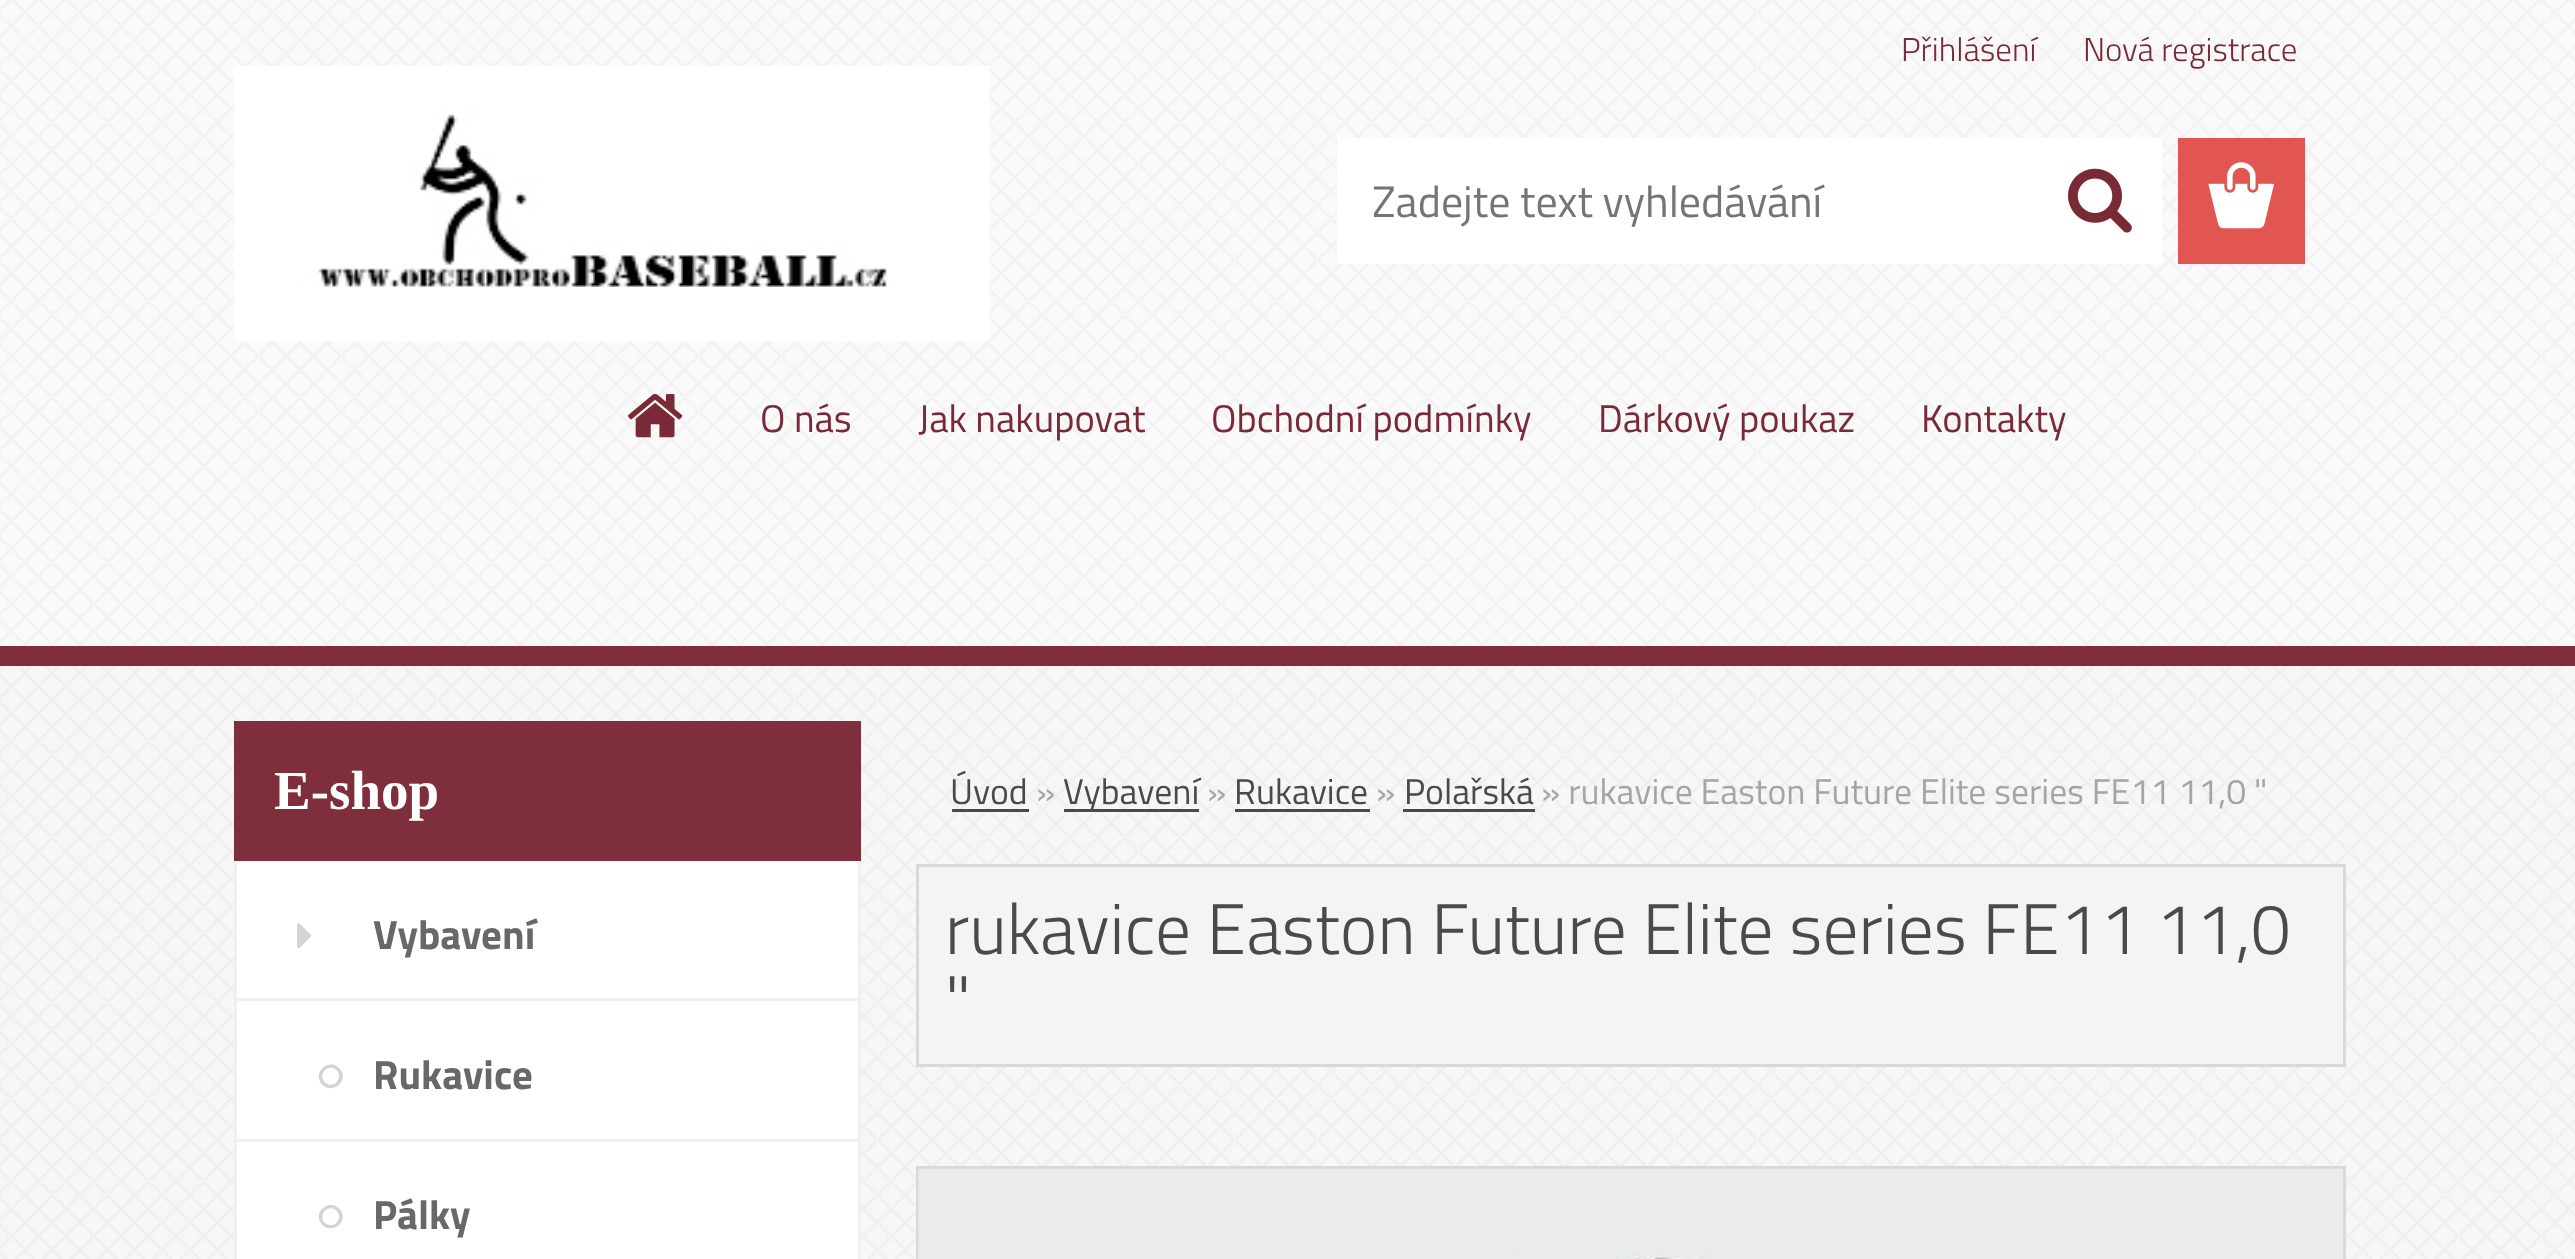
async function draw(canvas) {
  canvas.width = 2575;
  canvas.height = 1259;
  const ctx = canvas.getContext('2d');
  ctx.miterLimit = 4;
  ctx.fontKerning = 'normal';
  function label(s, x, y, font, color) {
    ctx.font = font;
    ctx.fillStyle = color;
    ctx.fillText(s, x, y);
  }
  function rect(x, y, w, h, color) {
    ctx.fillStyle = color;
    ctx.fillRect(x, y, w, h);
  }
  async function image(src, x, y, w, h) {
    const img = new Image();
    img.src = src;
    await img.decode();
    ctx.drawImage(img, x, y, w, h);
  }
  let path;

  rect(0, 0, 2575, 1259, '#f7f7f7');
  await image('assets/img1.png', 0, 666, 2575, 593);
  rect(0, 0, 2575, 646, '#fafafa');
  await image('assets/img5.png', 0, 0, 2575, 646);
  label('Přihlášení', 1901, 61, '300 33px Titillium Web', '#7a2a37');
  label('Nová registrace', 2083, 61, '300 33px Titillium Web', '#7a2a37');
  rect(2178, 138, 127, 126, '#e15651');
  await image('assets/img2.png', 2208, 162, 66, 67);
  rect(234, 721, 627, 140, '#7f2f3c');
  label('E-shop', 274, 809, 'bold 55px Liberation Serif', '#fff');
  rect(237, 861, 621, 137, '#fff');
  rect(858, 861, 3, 280, '#f0f0f0');
  rect(234, 998, 627, 3, '#f0f0f0');
  rect(234, 861, 3, 140, '#f0f0f0');
  await image('assets/img3.png', 297, 923, 14, 26);
  label('Vybavení', 373, 949, 'bold 41px Titillium Web', '#686868');
  rect(237, 1001, 621, 138, '#fff');
  rect(234, 1139, 627, 3, '#f0f0f0');
  rect(234, 1001, 3, 258, '#f0f0f0');
  ctx.fillStyle = '#d4d4d4';
  path = new Path2D('M335 1069C325.5 1063.5 317 1078 326.5 1083.5C336 1089 344.5 1074.5 335 1069ZM341 1070.5C349 1084 328.5 1095.5 320.5 1082.5C313 1069 333 1057 341 1070.5Z');
  ctx.fill(path);
  label('Rukavice', 373, 1089, 'bold 41px Titillium Web', '#686868');
  rect(237, 1142, 621, 117, '#fff');
  rect(858, 1141, 3, 118, '#f0f0f0');
  ctx.fillStyle = '#d4d4d4';
  path = new Path2D('M335 1209.5C325.5 1204 317 1218.5 326.5 1224C336 1229.5 344.5 1215 335 1209.5ZM341 1211C349 1224 328.5 1236 320.5 1222.5C313 1209 333 1197.5 341 1211Z');
  ctx.fill(path);
  label('Pálky', 373, 1229, 'bold 41px Titillium Web', '#686868');
  label('Úvod', 950, 804, '35.75px Titillium Web', '#4a4a4a');
  rect(952, 809, 77, 3, '#000000b3');
  label('»', 1036, 804, '35.75px Titillium Web', '#a5a5a5');
  rect(1064, 809, 135, 3, '#000000b3');
  label('Vybavení', 1063, 804, '35.75px Titillium Web', '#4a4a4a');
  label('»', 1207, 804, '35.75px Titillium Web', '#a5a5a5');
  label('Rukavice', 1234, 804, '35.75px Titillium Web', '#4a4a4a');
  rect(1235, 809, 135, 3, '#000000b3');
  label('»', 1376, 804, '35.75px Titillium Web', '#a5a5a5');
  label('Polařská', 1404, 804, '35.75px Titillium Web', '#4a4a4a');
  rect(1403, 809, 132, 3, '#000000b3');
  label('» rukavice Easton Future Elite series FE11 11,0 "', 1541, 804, '35.75px Titillium Web', '#a5a5a5');
  ctx.fillStyle = '#f4f4f4';
  ctx.beginPath();
  ctx.rect(917.5, 865.5, 1427, 200);
  ctx.fill();
  ctx.strokeStyle = '#d9d9d9';
  ctx.lineWidth = 3;
  ctx.stroke();
  label('rukavice Easton Future Elite series FE11 11,0', 945, 954, '300 71.5px Titillium Web', '#4a4a4a');
  label('"', 945, 1026, '300 71.5px Titillium Web', '#4a4a4a');
  ctx.strokeRect(917.5, 1167.5, 1427, 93);
  await image('assets/img4.png', 918, 1168, 1425, 91);
  rect(0, 646, 2575, 20, '#7f2f3c');
  await image('assets/img6.png', 233, 66, 757, 275);
  rect(1337, 138, 825, 126, '#fff');
  await image('assets/img7.png', 2068, 168, 64, 65);
  label('Zadejte text vyhledávání', 1372, 217, '44px Titillium Web', '#757575');
  await image('assets/img8.png', 627, 394, 56, 44);
  label('O nás', 760, 432, '38.5px Titillium Web', '#7a2a37');
  label('Jak nakupovat', 918, 432, '38.5px Titillium Web', '#7a2a37');
  label('Obchodní podmínky', 1211, 432, '38.5px Titillium Web', '#7a2a37');
  label('Dárkový poukaz', 1598, 432, '38.5px Titillium Web', '#7a2a37');
  label('Kontakty', 1921, 432, '38.5px Titillium Web', '#7a2a37');
}

draw(document.querySelector('canvas'));
